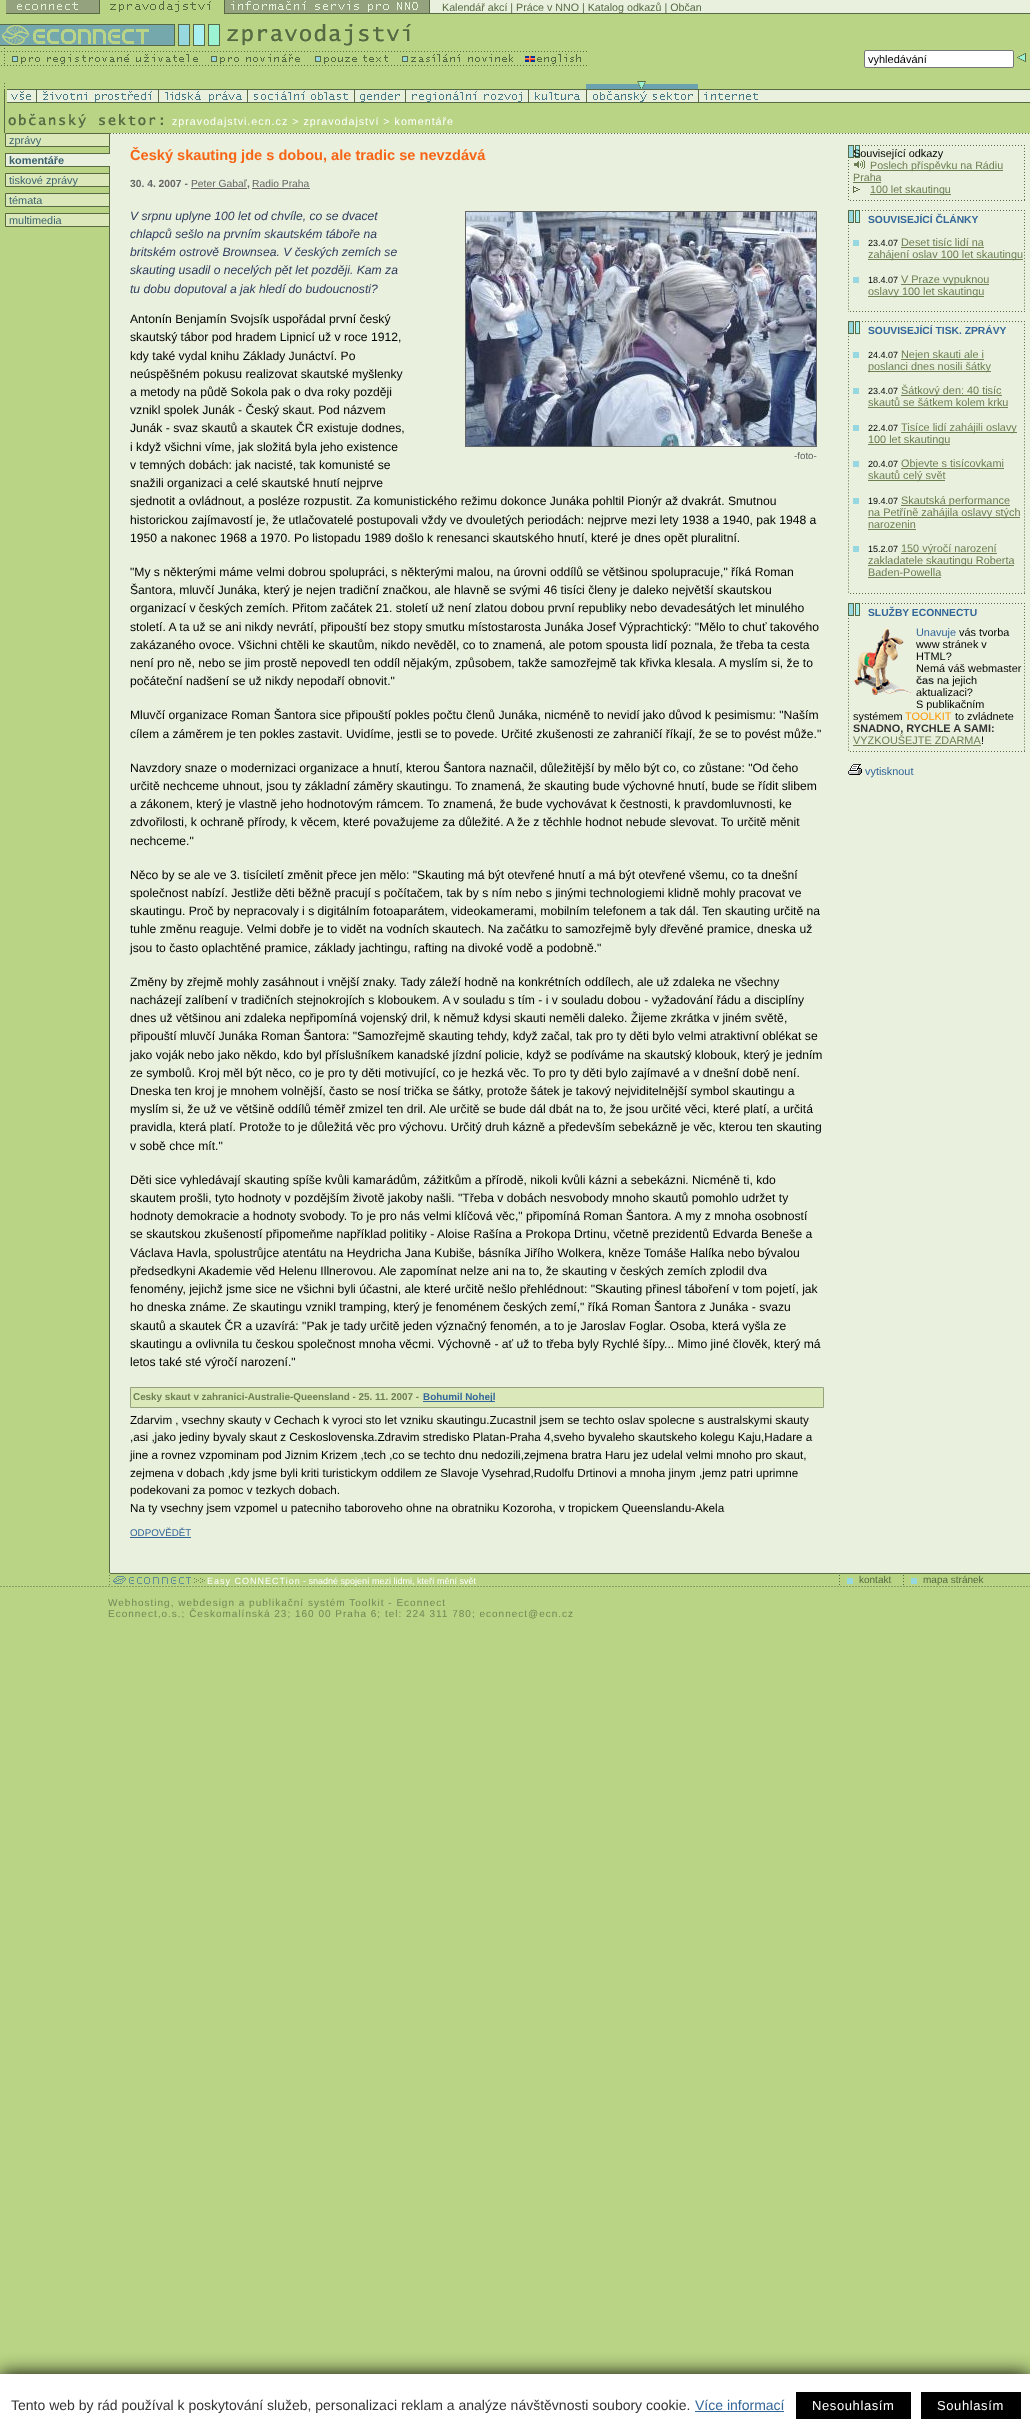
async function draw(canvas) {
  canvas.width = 1030;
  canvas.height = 2436;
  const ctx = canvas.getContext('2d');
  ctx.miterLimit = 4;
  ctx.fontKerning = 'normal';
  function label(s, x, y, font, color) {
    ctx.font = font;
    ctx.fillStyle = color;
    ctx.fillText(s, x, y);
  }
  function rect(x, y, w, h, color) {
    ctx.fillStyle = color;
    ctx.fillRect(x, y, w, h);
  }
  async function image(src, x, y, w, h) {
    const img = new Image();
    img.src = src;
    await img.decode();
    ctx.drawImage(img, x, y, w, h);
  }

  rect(0, 0, 1030, 2436, '#b9d484');
  await image('assets/img1.png', 6, 0, 94, 14);
  await image('assets/img2.png', 110, 0, 115, 14);
  await image('assets/img3.png', 225, 0, 205, 14);
  rect(430, 0, 600, 13, '#e9f0dd');
  rect(430, 13, 600, 1, '#586a44');
  label('Kalendář akcí | Práce v NNO | Katalog odkazů | Občan', 442, 11, '10.7px Liberation Sans', '#586a44');
  await image('assets/img4.png', 0, 24, 220, 25);
  await image('assets/img5.png', 227, 24, 184, 22);
  await image('assets/img6.png', 1, 51, 208, 15);
  await image('assets/img7.png', 211, 51, 103, 15);
  await image('assets/img8.png', 315, 51, 86, 15);
  await image('assets/img9.png', 402, 51, 122, 15);
  await image('assets/img10.png', 525, 51, 62, 15);
  ctx.fillStyle = '#fff';
  ctx.beginPath();
  ctx.roundRect(864.5, 50.5, 149, 17, 1.5);
  ctx.fill();
  ctx.strokeStyle = '#767676';
  ctx.stroke();
  label('vyhledávání', 868, 63, '11px Liberation Sans', '#000');
  await image('assets/img11.png', 1017, 53, 9, 9);
  await image('assets/img12.png', 4, 83, 1, 4);
  await image('assets/img13.png', 586, 81, 112, 8);
  rect(4, 89, 1, 14, '#5b6a44');
  rect(7, 89, 1023, 1, '#586a44');
  rect(7, 90, 1023, 12, '#e9f0dd');
  await image('assets/img14.png', 11, 91, 20, 9);
  await image('assets/img15.png', 36, 90, 116, 12);
  await image('assets/img16.png', 158, 90, 84, 12);
  await image('assets/img17.png', 247, 90, 101, 12);
  await image('assets/img18.png', 354, 90, 46, 12);
  await image('assets/img19.png', 405, 90, 117, 12);
  await image('assets/img20.png', 528, 90, 52, 12);
  await image('assets/img21.png', 586, 90, 107, 12);
  await image('assets/img22.png', 698, 90, 60, 12);
  rect(7, 102, 1023, 1, '#586a44');
  await image('assets/img23.png', 4, 103, 159, 30);
  ctx.letterSpacing = '1px';
  label('zpravodajstvi.ecn.cz > zpravodajství > komentáře', 172, 125, '10.7px Liberation Sans', '#fff');
  rect(109, 147, 1, 1426, '#586a44');
  ctx.fillStyle = '#dbe9ba';
  ctx.beginPath();
  ctx.rect(5.5, 133.5, 104, 13);
  ctx.fill();
  ctx.strokeStyle = '#586a44';
  ctx.stroke();
  ctx.letterSpacing = '0px';
  label('zprávy', 9, 144, '10.9px Liberation Sans', '#3c636c');
  rect(6, 154, 104, 12, '#e9f0dd');
  rect(5, 153, 105, 1, '#586a44');
  rect(5, 166, 105, 1, '#586a44');
  rect(5, 153, 1, 14, '#586a44');
  label('komentáře', 9, 164, 'bold 10.9px Liberation Sans', '#3c636c');
  ctx.fillStyle = '#dbe9ba';
  ctx.beginPath();
  ctx.rect(5.5, 173.5, 104, 13);
  ctx.fill();
  ctx.stroke();
  label('tiskové zprávy', 9, 184, '10.9px Liberation Sans', '#3c636c');
  ctx.fillStyle = '#dbe9ba';
  ctx.beginPath();
  ctx.rect(5.5, 193.5, 104, 13);
  ctx.fill();
  ctx.stroke();
  label('témata', 9, 204, '10.9px Liberation Sans', '#3c636c');
  ctx.fillStyle = '#dbe9ba';
  ctx.beginPath();
  ctx.rect(5.5, 213.5, 104, 13);
  ctx.fill();
  ctx.stroke();
  label('multimedia', 9, 224, '10.9px Liberation Sans', '#3c636c');
  rect(110, 133, 920, 1440, '#e9f0dd');
  await image('assets/img24.png', 110, 133, 727, 1);
  label('Český skauting jde s dobou, ale tradic se nevzdává', 130, 160, 'bold 14.6px Liberation Sans', '#f76617');
  label('30. 4. 2007 -', 130, 187, 'bold 10.3px Liberation Sans', '#666');
  label('Peter Gabaľ', 191, 187, '10.3px Liberation Sans', '#666');
  rect(191, 188, 56, 1, '#666');
  label(',', 247, 187, 'bold 10.3px Liberation Sans', '#666');
  label('Radio Praha', 252, 187, '10.3px Liberation Sans', '#666');
  rect(252, 188, 58, 1, '#666');
  label('V srpnu uplyne 100 let od chvíle, co se dvacet', 130, 220, 'italic 12.15px Liberation Sans', '#2f3d5e');
  label('chlapců sešlo na prvním skautském táboře na', 130, 238, 'italic 12.15px Liberation Sans', '#2f3d5e');
  label('britském ostrově Brownsea. V českých zemích se', 130, 256, 'italic 12.15px Liberation Sans', '#2f3d5e');
  label('skauting usadil o necelých pět let později. Kam za', 130, 274, 'italic 12.15px Liberation Sans', '#2f3d5e');
  label('tu dobu doputoval a jak hledí do budoucnosti?', 130, 293, 'italic 12.15px Liberation Sans', '#2f3d5e');
  label('Antonín Benjamín Svojsík uspořádal první český', 130, 323, '12.15px Liberation Sans', '#000');
  label('skautský tábor pod hradem Lipnicí už v roce 1912,', 130, 341, '12.15px Liberation Sans', '#000');
  label('kdy také vydal knihu Základy Junáctví. Po', 130, 360, '12.15px Liberation Sans', '#000');
  label('neúspěšném pokusu realizovat skautské myšlenky', 130, 378, '12.15px Liberation Sans', '#000');
  label('a metody na půdě Sokola pak o dva roky později', 130, 396, '12.15px Liberation Sans', '#000');
  label('vznikl spolek Junák - Český skaut. Pod názvem', 130, 414, '12.15px Liberation Sans', '#000');
  label('Junák - svaz skautů a skautek ČR existuje dodnes,', 130, 432, '12.15px Liberation Sans', '#000');
  label('i když všichni víme, jak složitá byla jeho existence', 130, 451, '12.15px Liberation Sans', '#000');
  label('v temných dobách: jak nacisté, tak komunisté se', 130, 469, '12.15px Liberation Sans', '#000');
  label('snažili organizaci a celé skautské hnutí nejprve', 130, 487, '12.15px Liberation Sans', '#000');
  label('sjednotit a ovládnout, a posléze rozpustit. Za komunistického režimu dokonce Junáka pohltil Pionýr až dvakrát. Smutnou', 130, 505, '12.15px Liberation Sans', '#000');
  label('historickou zajímavostí je, že utlačovatelé postupovali vždy ve dvouletých periodách: nejprve mezi lety 1938 a 1940, pak 1948 a', 130, 524, '12.15px Liberation Sans', '#000');
  label('1950 a nakonec 1968 a 1970. Po listopadu 1989 došlo k renesanci skautského hnutí, které je dnes opět pluralitní.', 130, 542, '12.15px Liberation Sans', '#000');
  ctx.strokeStyle = '#666';
  ctx.strokeRect(465.5, 211.5, 351, 235);
  await image('assets/img25.png', 466, 212, 350, 234);
  label('-foto-', 794, 459, '9.75px Liberation Sans', '#666');
  label('"My s některými máme velmi dobrou spolupráci, s některými malou, na úrovni oddílů se většinou spolupracuje," říká Roman', 130, 576, '12.15px Liberation Sans', '#000');
  label('Šantora, mluvčí Junáka, který je nejen tradiční značkou, ale hlavně se svými 46 tisíci členy je daleko největší skautskou', 130, 594, '12.15px Liberation Sans', '#000');
  label('organizací v českých zemích. Přitom začátek 21. století už není zlatou dobou první republiky nebo devadesátých let minulého', 130, 612, '12.15px Liberation Sans', '#000');
  label('století. A ta už se ani nikdy nevrátí, připouští bez stopy smutku místostarosta Junáka Josef Výprachtický: "Mělo to chuť takového', 130, 631, '12.15px Liberation Sans', '#000');
  label('zakázaného ovoce. Všichni chtěli ke skautům, nikdo nevěděl, co to znamená, ale potom spousta lidí poznala, že třeba ta cesta', 130, 649, '12.15px Liberation Sans', '#000');
  label('není pro ně, nebo se jim prostě nepovedl ten oddíl nějakým, způsobem, takže samozřejmě tak křivka klesala. A myslím si, že to', 130, 667, '12.15px Liberation Sans', '#000');
  label('počáteční nadšení se už nikdy nepodaří obnovit."', 130, 685, '12.15px Liberation Sans', '#000');
  label('Mluvčí organizace Roman Šantora sice připouští pokles počtu členů Junáka, nicméně to nevidí jako důvod k pesimismu: "Naším', 130, 719, '12.15px Liberation Sans', '#000');
  label('cílem a záměrem je ten pokles zastavit. Uvidíme, jestli se to povede. Určité zkušenosti ze zahraničí říkají, že se to povést může."', 130, 738, '12.15px Liberation Sans', '#000');
  label('Navzdory snaze o modernizaci organizace a hnutí, kterou Šantora naznačil, důležitější by mělo být co, co zůstane: "Od čeho', 130, 772, '12.15px Liberation Sans', '#000');
  label('určitě nechceme uhnout, jsou ty základní záměry skautingu. To znamená, že skauting bude výchovné hnutí, bude se řídit slibem', 130, 790, '12.15px Liberation Sans', '#000');
  label('a zákonem, který je vlastně jeho hodnotovým rámcem. To znamená, že bude vychovávat k čestnosti, k pravdomluvnosti, ke', 130, 808, '12.15px Liberation Sans', '#000');
  label('zdvořilosti, k ochraně přírody, k věcem, které považujeme za důležité. A že z těchhle hodnot nebude slevovat. To určitě měnit', 130, 826, '12.15px Liberation Sans', '#000');
  label('nechceme."', 130, 845, '12.15px Liberation Sans', '#000');
  label('Něco by se ale ve 3. tisíciletí změnit přece jen mělo: "Skauting má být otevřené hnutí a má být otevřené všemu, co ta dnešní', 130, 879, '12.15px Liberation Sans', '#000');
  label('společnost nabízí. Jestliže děti běžně pracují s počítačem, tak by s ním nebo s jinými technologiemi klidně mohly pracovat ve', 130, 897, '12.15px Liberation Sans', '#000');
  label('skautingu. Proč by nepracovaly i s digitálním fotoaparátem, videokamerami, mobilním telefonem a tak dál. Ten skauting určitě na', 130, 915, '12.15px Liberation Sans', '#000');
  label('tuhle změnu reaguje. Velmi dobře je to vidět na vodních skautech. Na začátku to samozřejmě byly dřevěné pramice, dneska už', 130, 933, '12.15px Liberation Sans', '#000');
  label('jsou to často oplachtěné pramice, základy jachtingu, rafting na divoké vodě a podobně."', 130, 952, '12.15px Liberation Sans', '#000');
  label('Změny by zřejmě mohly zasáhnout i vnější znaky. Tady záleží hodně na konkrétních oddílech, ale už zdaleka ne všechny', 130, 986, '12.15px Liberation Sans', '#000');
  label('nacházejí zalíbení v tradičních stejnokrojích s kloboukem. A v souladu s tím - i v souladu dobou - vyžadování řádu a disciplíny', 130, 1004, '12.15px Liberation Sans', '#000');
  label('dnes už většinou ani zdaleka nepřipomíná vojenský dril, k němuž kdysi skauti neměli daleko. Žijeme zkrátka v jiném světě,', 130, 1022, '12.15px Liberation Sans', '#000');
  label('připouští mluvčí Junáka Roman Šantora: "Samozřejmě skauting tehdy, když začal, tak pro ty děti bylo velmi atraktivní oblékat se', 130, 1040, '12.15px Liberation Sans', '#000');
  label('jako voják nebo jako někdo, kdo byl příslušníkem kanadské jízdní policie, když se podíváme na skautský klobouk, který je jedním', 130, 1059, '12.15px Liberation Sans', '#000');
  label('ze symbolů. Kroj měl být něco, co je pro ty děti motivující, co je hezká věc. To pro ty děti bylo zajímavé a v dnešní době není.', 130, 1077, '12.15px Liberation Sans', '#000');
  label('Dneska ten kroj je mnohem volnější, často se nosí trička se šátky, protože šátek je takový nejviditelnější symbol skautingu a', 130, 1095, '12.15px Liberation Sans', '#000');
  label('myslím si, že už ve většině oddílů téměř zmizel ten dril. Ale určitě se bude dál dbát na to, že jsou určité věci, které platí, a určitá', 130, 1113, '12.15px Liberation Sans', '#000');
  label('pravidla, která platí. Protože to je důležitá věc pro výchovu. Určitý druh kázně a především sebekázně je věc, kterou ten skauting', 130, 1131, '12.15px Liberation Sans', '#000');
  label('v sobě chce mít."', 130, 1150, '12.15px Liberation Sans', '#000');
  label('Děti sice vyhledávají skauting spíše kvůli kamarádům, zážitkům a přírodě, nikoli kvůli kázni a sebekázni. Nicméně ti, kdo', 130, 1184, '12.15px Liberation Sans', '#000');
  label('skautem prošli, tyto hodnoty v pozdějším životě jakoby našli. "Třeba v dobách nesvobody mnoho skautů pomohlo udržet ty', 130, 1202, '12.15px Liberation Sans', '#000');
  label('hodnoty demokracie a hodnoty svobody. To je pro nás velmi klíčová věc," připomíná Roman Šantora. A my z mnoha osobností', 130, 1220, '12.15px Liberation Sans', '#000');
  label('se skautskou zkušeností připomeňme například politiky - Aloise Rašína a Prokopa Drtinu, včetně prezidentů Edvarda Beneše a', 130, 1238, '12.15px Liberation Sans', '#000');
  label('Václava Havla, spolustrůjce atentátu na Heydricha Jana Kubiše, básníka Jiřího Wolkera, kněze Tomáše Halíka nebo bývalou', 130, 1257, '12.15px Liberation Sans', '#000');
  label('předsedkyni Akademie věd Helenu Illnerovou. Ale zapomínat nelze ani na to, že skauting v českých zemích zplodil dva', 130, 1275, '12.15px Liberation Sans', '#000');
  label('fenomény, jejichž jsme sice ne všichni byli účastni, ale které určitě nešlo přehlédnout: "Skauting přinesl táboření v tom pojetí, jak', 130, 1293, '12.15px Liberation Sans', '#000');
  label('ho dneska známe. Ze skautingu vznikl tramping, který je fenoménem českých zemí," říká Roman Šantora z Junáka - svazu', 130, 1311, '12.15px Liberation Sans', '#000');
  label('skautů a skautek ČR a uzavírá: "Pak je tady určitě jeden význačný fenomén, a to je Jaroslav Foglar. Osoba, která vyšla ze', 130, 1330, '12.15px Liberation Sans', '#000');
  label('skautingu a ovlivnila tu českou společnost mnoha věcmi. Výchovně - ať už to třeba byly Rychlé šípy... Mimo jiné člověk, který má', 130, 1348, '12.15px Liberation Sans', '#000');
  label('letos také sté výročí narození."', 130, 1366, '12.15px Liberation Sans', '#000');
  ctx.fillStyle = '#dbe9ba';
  ctx.beginPath();
  ctx.rect(130.5, 1387.5, 693, 20);
  ctx.fill();
  ctx.strokeStyle = '#94a37e';
  ctx.stroke();
  label('Cesky skaut v zahranici-Australie-Queensland - 25. 11. 2007 -', 133, 1400, 'bold 9.9px Liberation Sans', '#6d7f53');
  rect(423, 1401, 72, 1, '#369');
  label('Bohumil Nohejl', 423, 1400, 'bold 9.9px Liberation Sans', '#369');
  label('Zdarvim , vsechny skauty v Cechach k vyroci sto let vzniku skautingu.Zucastnil jsem se techto oslav spolecne s australskymi skauty', 130, 1424, '11.67px Liberation Sans', '#000');
  label(',asi ,jako jediny byvaly skaut z Ceskoslovenska.Zdravim stredisko Platan-Praha 4,sveho byvaleho skautskeho kolegu Kaju,Hadare a', 130, 1441, '11.67px Liberation Sans', '#000');
  label('jine a rovnez vzpominam pod Jiznim Krizem ,tech ,co se techto dnu nedozili,zejmena bratra Haru jez udelal velmi mnoho pro skaut,', 130, 1459, '11.67px Liberation Sans', '#000');
  label('zejmena v dobach ,kdy jsme byli kriti turistickym oddilem ze Slavoje Vysehrad,Rudolfu Drtinovi a mnoha jinym ,jemz patri uprimne', 130, 1477, '11.67px Liberation Sans', '#000');
  label('podekovani za pomoc v tezkych dobach.', 130, 1494, '11.67px Liberation Sans', '#000');
  label('Na ty vsechny jsem vzpomel u patecniho taboroveho ohne na obratniku Kozoroha, v tropickem Queenslandu-Akela', 130, 1512, '11.67px Liberation Sans', '#000');
  label('ODPOVĚDĚT', 130, 1536, '9.75px Liberation Sans', '#369');
  rect(130, 1537, 61, 1, '#369');
  await image('assets/img26.png', 839, 133, 190, 1);
  rect(110, 1573, 920, 1, '#586a44');
  await image('assets/img27.png', 848, 145, 177, 55);
  await image('assets/img28.png', 850, 200, 175, 1);
  label('Související odkazy', 853, 157, '10.9px Liberation Sans', '#000');
  await image('assets/img29.png', 854, 160, 11, 9);
  rect(870, 170, 133, 1, '#6d7f53');
  label('Poslech příspěvku na Rádiu', 870, 169, '10.7px Liberation Sans', '#6d7f53');
  label('Praha', 853, 181, '10.7px Liberation Sans', '#6d7f53');
  rect(853, 182, 28, 1, '#6d7f53');
  await image('assets/img30.png', 853, 186, 7, 7);
  rect(870, 194, 81, 1, '#6d7f53');
  label('100 let skautingu', 870, 193, '10.7px Liberation Sans', '#6d7f53');
  await image('assets/img31.png', 848, 210, 177, 102);
  await image('assets/img28.png', 850, 311, 175, 1);
  label('SOUVISEJÍCÍ ČLÁNKY', 868, 223, 'bold 10.3px Liberation Sans', '#369');
  rect(853, 240, 6, 6, '#97d8e0');
  label('23.4.07', 868, 246, '9px Liberation Sans', '#000');
  label('Deset tisíc lidí na', 901, 246, '10.9px Liberation Sans', '#6d7f53');
  rect(901, 247, 83, 1, '#6d7f53');
  rect(868, 259, 155, 1, '#6d7f53');
  label('zahájení oslav 100 let skautingu', 868, 258, '10.9px Liberation Sans', '#6d7f53');
  rect(853, 277, 6, 6, '#97d8e0');
  label('18.4.07', 868, 283, '9px Liberation Sans', '#000');
  rect(901, 284, 88, 1, '#6d7f53');
  label('V Praze vypuknou', 901, 283, '10.9px Liberation Sans', '#6d7f53');
  rect(868, 296, 116, 1, '#6d7f53');
  label('oslavy 100 let skautingu', 868, 295, '10.9px Liberation Sans', '#6d7f53');
  await image('assets/img32.png', 848, 321, 177, 272);
  await image('assets/img28.png', 850, 593, 175, 1);
  label('SOUVISEJÍCÍ TISK. ZPRÁVY', 868, 334, 'bold 10.3px Liberation Sans', '#369');
  rect(853, 352, 6, 6, '#97d8e0');
  label('24.4.07', 868, 358, '9px Liberation Sans', '#000');
  rect(901, 359, 83, 1, '#6d7f53');
  label('Nejen skauti ale i', 901, 358, '10.9px Liberation Sans', '#6d7f53');
  rect(868, 371, 123, 1, '#6d7f53');
  label('poslanci dnes nosili šátky', 868, 370, '10.9px Liberation Sans', '#6d7f53');
  rect(853, 388, 6, 6, '#97d8e0');
  label('23.4.07', 868, 394, '9px Liberation Sans', '#000');
  rect(901, 395, 101, 1, '#6d7f53');
  label('Šátkový den: 40 tisíc', 901, 394, '10.9px Liberation Sans', '#6d7f53');
  label('skautů se šátkem kolem krku', 868, 406, '10.9px Liberation Sans', '#6d7f53');
  rect(868, 407, 140, 1, '#6d7f53');
  rect(853, 425, 6, 6, '#97d8e0');
  label('22.4.07', 868, 431, '9px Liberation Sans', '#000');
  rect(901, 432, 116, 1, '#6d7f53');
  label('Tisíce lidí zahájili oslavy', 901, 431, '10.9px Liberation Sans', '#6d7f53');
  rect(868, 444, 82, 1, '#6d7f53');
  label('100 let skautingu', 868, 443, '10.9px Liberation Sans', '#6d7f53');
  rect(853, 461, 6, 6, '#97d8e0');
  label('20.4.07', 868, 467, '9px Liberation Sans', '#000');
  rect(901, 468, 103, 1, '#6d7f53');
  label('Objevte s tisícovkami', 901, 467, '10.9px Liberation Sans', '#6d7f53');
  rect(868, 480, 77, 1, '#6d7f53');
  label('skautů celý svět', 868, 479, '10.9px Liberation Sans', '#6d7f53');
  rect(853, 498, 6, 6, '#97d8e0');
  label('19.4.07', 868, 504, '9px Liberation Sans', '#000');
  rect(901, 505, 109, 1, '#6d7f53');
  label('Skautská performance', 901, 504, '10.9px Liberation Sans', '#6d7f53');
  rect(868, 517, 152, 1, '#6d7f53');
  label('na Petříně zahájila oslavy stých', 868, 516, '10.9px Liberation Sans', '#6d7f53');
  label('narozenin', 868, 528, '10.9px Liberation Sans', '#6d7f53');
  rect(868, 529, 48, 1, '#6d7f53');
  rect(853, 546, 6, 6, '#97d8e0');
  label('15.2.07', 868, 552, '9px Liberation Sans', '#000');
  rect(901, 553, 96, 1, '#6d7f53');
  label('150 výročí narození', 901, 552, '10.9px Liberation Sans', '#6d7f53');
  rect(868, 565, 146, 1, '#6d7f53');
  label('zakladatele skautingu Roberta', 868, 564, '10.9px Liberation Sans', '#6d7f53');
  label('Baden-Powella', 868, 576, '10.9px Liberation Sans', '#6d7f53');
  rect(868, 577, 73, 1, '#6d7f53');
  await image('assets/img33.png', 848, 603, 177, 148);
  await image('assets/img28.png', 850, 751, 175, 1);
  label('SLUŽBY ECONNECTU', 868, 616, 'bold 10.3px Liberation Sans', '#369');
  await image('assets/img34.png', 854, 628, 57, 68);
  label('Unavuje', 916, 636, '10.9px Liberation Sans', '#369');
  label('vás tvorba', 959, 636, '10.9px Liberation Sans', '#000');
  label('www stránek v', 916, 648, '10.9px Liberation Sans', '#000');
  label('HTML?', 916, 660, '10.9px Liberation Sans', '#000');
  label('Nemá váš webmaster', 916, 672, '10.9px Liberation Sans', '#000');
  label('čas', 916, 684, 'bold 10.9px Liberation Sans', '#333');
  label('na jejich', 937, 684, '10.9px Liberation Sans', '#000');
  label('aktualizaci?', 916, 696, '10.9px Liberation Sans', '#000');
  label('S publikačním', 916, 708, '10.9px Liberation Sans', '#000');
  label('systémem', 853, 720, '10.9px Liberation Sans', '#000');
  label('TOOLKIT', 905, 720, '10.9px Liberation Sans', '#f90');
  label('to zvládnete', 955, 720, '10.9px Liberation Sans', '#000');
  label('SNADNO, RYCHLE A SAMI:', 853, 732, 'bold 10.9px Liberation Sans', '#333');
  label('VYZKOUŠEJTE ZDARMA', 853, 744, '10.9px Liberation Sans', '#6d7f53');
  rect(853, 745, 128, 1, '#6d7f53');
  label('!', 981, 744, '10.9px Liberation Sans', '#000');
  await image('assets/img35.png', 848, 764, 14, 11);
  label('vytisknout', 865, 775, '10.9px Liberation Sans', '#369');
  await image('assets/img36.png', 0, 1586, 1030, 1);
  await image('assets/img37.png', 109, 1575, 96, 10);
  ctx.letterSpacing = '1px';
  label('Easy CONNECTion', 207, 1584, '9px Liberation Sans', '#fff');
  ctx.letterSpacing = '0px';
  label('- snadné spojení mezi lidmi, kteří mění svět', 303, 1584, '9px Liberation Sans', '#fff');
  await image('assets/img38.png', 839, 1575, 1, 10);
  label('kontakt', 859, 1583, '10px Liberation Sans', '#586a44');
  rect(847, 1578, 6, 6, '#97d8e0');
  await image('assets/img38.png', 903, 1575, 1, 10);
  label('mapa stránek', 923, 1583, '10px Liberation Sans', '#586a44');
  rect(911, 1578, 6, 6, '#97d8e0');
  ctx.letterSpacing = '1px';
  label('Webhosting, webdesign a publikační systém Toolkit - Econnect', 108, 1606, '10px Liberation Sans', '#718857');
  label('Econnect,o.s.; Českomalínská 23; 160 00 Praha 6; tel: 224 311 780; econnect@ecn.cz', 108, 1617, '10px Liberation Sans', '#718857');
  ctx.fillStyle = '#000';
  ctx.filter = 'blur(9.5px)';
  ctx.beginPath();
  ctx.rect(0, 2374, 1030, 62);
  ctx.fill();
  ctx.filter = 'none';
  rect(0, 2374, 1030, 62, '#fff');
  ctx.letterSpacing = '0px';
  label('Tento web by rád používal k poskytování služeb, personalizaci reklam a analýze návštěvnosti soubory cookie.', 11, 2410, '14px Liberation Sans', '#333');
  label('Více informací', 695, 2410, '14px Liberation Sans', '#369');
  rect(695, 2411, 89, 1, '#369');
  rect(796, 2392, 115, 27, '#000');
  ctx.letterSpacing = '0.6px';
  label('Nesouhlasím', 812, 2410, '13px Liberation Sans', '#fff');
  rect(921, 2392, 100, 27, '#000');
  label('Souhlasím', 937, 2410, '13px Liberation Sans', '#fff');
}

draw(document.querySelector('canvas'));
